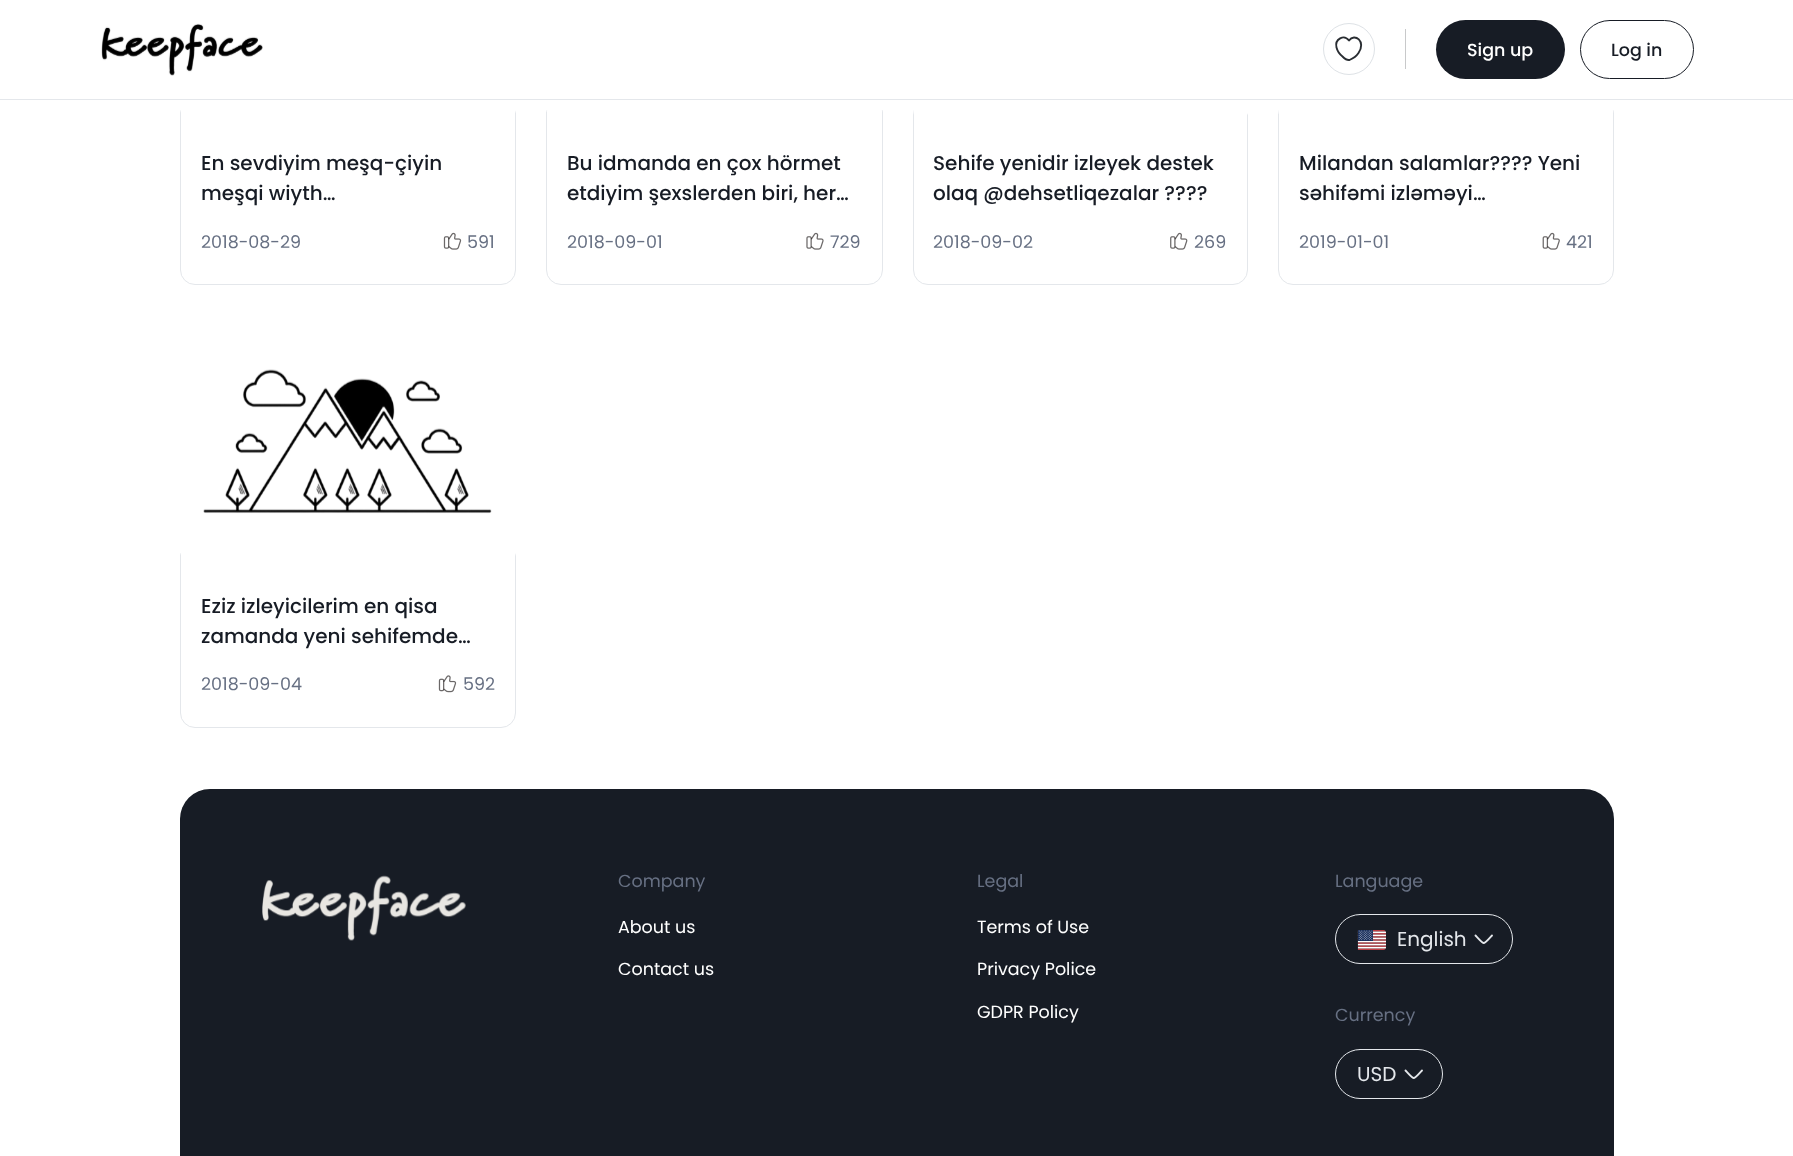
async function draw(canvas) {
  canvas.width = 1793;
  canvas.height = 1156;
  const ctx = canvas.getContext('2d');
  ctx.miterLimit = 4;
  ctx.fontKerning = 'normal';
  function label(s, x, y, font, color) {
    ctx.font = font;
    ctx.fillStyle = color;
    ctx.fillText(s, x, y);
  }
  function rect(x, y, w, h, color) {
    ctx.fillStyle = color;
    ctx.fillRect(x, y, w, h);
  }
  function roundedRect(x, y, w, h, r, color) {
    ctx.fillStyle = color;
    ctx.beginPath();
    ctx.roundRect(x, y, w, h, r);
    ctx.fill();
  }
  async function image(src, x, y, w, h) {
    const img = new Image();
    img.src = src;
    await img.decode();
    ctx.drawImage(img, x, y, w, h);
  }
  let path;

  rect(0, 0, 1793, 1156, '#fff');
  rect(0, 99, 1793, 1, '#e4e7eb');
  await image('assets/img1.png', 101, 23, 162, 53);
  ctx.beginPath();
  ctx.arc(1349, 49, 25.5, 0, 2 * Math.PI);
  ctx.strokeStyle = '#dee2e6';
  ctx.stroke();
  path = new Path2D('M1349.5 60C1347 60.5 1344 58 1342.5 56.5C1340 54.5 1337.5 51.5 1336.5 47.5C1334.5 39 1344 34 1349 40.5C1354.5 32.5 1366.5 41.5 1358.5 53C1356.5 56 1353 58.5 1349.5 60Z');
  ctx.strokeStyle = '#292d32';
  ctx.lineWidth = 1.9;
  ctx.lineCap = 'round';
  ctx.lineJoin = 'round';
  ctx.stroke(path);
  rect(1405, 29, 1, 40, '#c8c9ca');
  roundedRect(1436, 20, 129, 59, 29.5, '#171c25');
  label('Sign up', 1467, 56, '500 17.5px Poppins', '#fff');
  ctx.beginPath();
  ctx.roundRect(1580.5, 20.5, 113, 58, 29);
  ctx.strokeStyle = '#171c25';
  ctx.lineWidth = 1;
  ctx.lineJoin = 'miter';
  ctx.stroke();
  label('Log in', 1611, 56, '500 17.5px Poppins', '#171c25');
  ctx.beginPath();
  ctx.roundRect(180.5, 110.5, 335, 174, [0, 0, 14.5, 14.5]);
  ctx.strokeStyle = '#e4e7eb';
  ctx.stroke();
  await image('assets/img2.png', 180, 100, 336, 13);
  label('En sevdiyim meşq-çiyin', 201, 170, '500 20px Poppins', '#171c25');
  label('meşqi wiyth…', 201, 200, '500 20px Poppins', '#171c25');
  label('2018-08-29', 201, 248, '17.5px Poppins', '#677083');
  await image('assets/img3.png', 443, 232, 19, 18);
  label('591', 467, 248, '17.5px Poppins', '#677083');
  ctx.beginPath();
  ctx.roundRect(546.5, 110.5, 336, 174, [0, 0, 14.5, 14.5]);
  ctx.stroke();
  await image('assets/img4.png', 546, 100, 337, 12);
  label('Bu idmanda en çox hörmet', 567, 170, '500 20px Poppins', '#171c25');
  label('etdiyim şexslerden biri, her…', 567, 200, '500 20px Poppins', '#171c25');
  label('2018-09-01', 567, 248, '17.5px Poppins', '#677083');
  await image('assets/img5.png', 806, 232, 18, 18);
  label('729', 830, 248, '17.5px Poppins', '#677083');
  ctx.beginPath();
  ctx.roundRect(913.5, 110.5, 334, 174, [0, 0, 14.5, 14.5]);
  ctx.stroke();
  await image('assets/img6.png', 913, 100, 335, 15);
  label('Sehife yenidir izleyek destek', 933, 170, '500 20px Poppins', '#171c25');
  label('olaq @dehsetliqezalar ????', 933, 200, '500 20px Poppins', '#171c25');
  label('2018-09-02', 933, 248, '17.5px Poppins', '#677083');
  await image('assets/img7.png', 1170, 232, 18, 18);
  label('269', 1194, 248, '17.5px Poppins', '#677083');
  ctx.beginPath();
  ctx.roundRect(1278.5, 110.5, 335, 174, [0, 0, 14.5, 14.5]);
  ctx.stroke();
  await image('assets/img8.png', 1278, 100, 336, 14);
  label('Milandan salamlar???? Yeni', 1299, 170, '500 20px Poppins', '#171c25');
  label('səhifəmi izləməyi…', 1299, 200, '500 20px Poppins', '#171c25');
  label('2019-01-01', 1299, 248, '17.5px Poppins', '#677083');
  await image('assets/img9.png', 1542, 232, 18, 18);
  label('421', 1566, 248, '17.5px Poppins', '#677083');
  ctx.beginPath();
  ctx.roundRect(180.5, 553.5, 335, 174, [0, 0, 14.5, 14.5]);
  ctx.stroke();
  await image('assets/img10.png', 180, 369, 336, 187);
  label('Eziz izleyicilerim en qisa', 201, 613, '500 20px Poppins', '#171c25');
  label('zamanda yeni sehifemde…', 201, 643, '500 20px Poppins', '#171c25');
  label('2018-09-04', 201, 690, '17.5px Poppins', '#677083');
  await image('assets/img11.png', 438, 675, 19, 18);
  label('592', 463, 690, '17.5px Poppins', '#677083');
  roundedRect(180, 789, 1434, 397, 30, '#171c25');
  await image('assets/img12.png', 262, 875, 204, 66);
  label('Company', 618, 887, '17.5px Poppins', '#677083');
  label('About us', 618, 933, '17.5px Poppins', '#fff');
  label('Contact us', 618, 975, '17.5px Poppins', '#fff');
  label('Legal', 977, 887, '17.5px Poppins', '#677083');
  label('Terms of Use', 977, 933, '17.5px Poppins', '#fff');
  label('Privacy Police', 977, 975, '17.5px Poppins', '#fff');
  label('GDPR Policy', 977, 1018, '17.5px Poppins', '#fff');
  label('Language', 1335, 887, '17.5px Poppins', '#677083');
  path = new Path2D('M1492 935.5C1482.5 945.5 1485 945.5 1475.5 935.5');
  ctx.lineWidth = 1.9;
  ctx.lineJoin = 'round';
  ctx.stroke(path);
  ctx.beginPath();
  ctx.roundRect(1335.5, 914.5, 177, 49, 24.5);
  ctx.lineWidth = 1;
  ctx.lineJoin = 'miter';
  ctx.stroke();
  await image('assets/img13.png', 1357, 930, 29, 20);
  label('English', 1397, 946, '20px Poppins', '#e4e7eb');
  label('Currency', 1335, 1021, '17.5px Poppins', '#677083');
  path = new Path2D('M1422 1070.5C1412.5 1080.5 1415 1080.5 1405.5 1070.5');
  ctx.lineWidth = 1.9;
  ctx.lineJoin = 'round';
  ctx.stroke(path);
  ctx.beginPath();
  ctx.roundRect(1335.5, 1049.5, 107, 49, 24.5);
  ctx.lineWidth = 1;
  ctx.lineJoin = 'miter';
  ctx.stroke();
  label('USD', 1357, 1081, '20px Poppins', '#e4e7eb');
}

draw(document.querySelector('canvas'));
